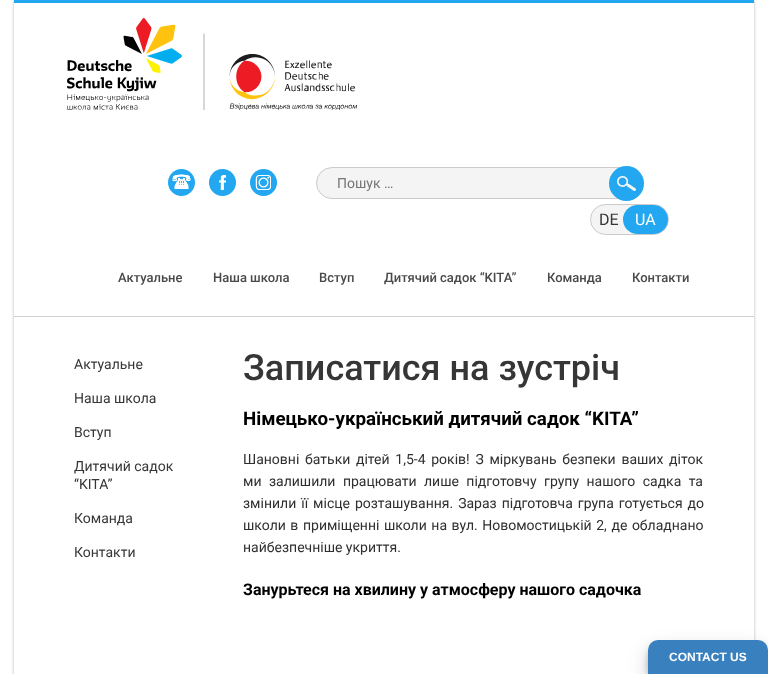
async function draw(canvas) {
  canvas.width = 768;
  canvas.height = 674;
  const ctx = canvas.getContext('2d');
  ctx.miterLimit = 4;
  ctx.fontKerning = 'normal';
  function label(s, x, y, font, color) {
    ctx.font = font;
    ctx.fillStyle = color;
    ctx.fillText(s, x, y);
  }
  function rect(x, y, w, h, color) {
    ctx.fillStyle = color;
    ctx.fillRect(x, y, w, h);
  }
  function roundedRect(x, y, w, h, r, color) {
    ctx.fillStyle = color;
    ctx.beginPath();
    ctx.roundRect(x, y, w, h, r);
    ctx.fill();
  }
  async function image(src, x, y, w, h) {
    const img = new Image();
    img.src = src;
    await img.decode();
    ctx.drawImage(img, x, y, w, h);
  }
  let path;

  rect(0, 0, 768, 674, '#fff');
  ctx.save();
  path = new Path2D('M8 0H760V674H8ZM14 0H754V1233H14Z');
  ctx.clip(path, 'evenodd');
  ctx.fillStyle = '#0000004d';
  ctx.filter = 'blur(1.5px)';
  ctx.beginPath();
  ctx.rect(14, 0, 740, 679);
  ctx.fill();
  ctx.filter = 'none';
  ctx.restore();
  rect(14, 0, 740, 3, '#22a7f0');
  await image('assets/img1.png', 67, 18, 291, 92);
  ctx.beginPath();
  ctx.arc(181.5, 182.5, 13.5, 0, 2 * Math.PI);
  ctx.fill();
  await image('assets/img2.png', 172, 174, 19, 15);
  ctx.beginPath();
  ctx.arc(222.5, 182.5, 13.5, 0, 2 * Math.PI);
  ctx.fill();
  await image('assets/img3.png', 219, 175, 7, 15);
  ctx.beginPath();
  ctx.arc(263.5, 182.5, 13.5, 0, 2 * Math.PI);
  ctx.fill();
  await image('assets/img4.png', 255, 175, 16, 15);
  ctx.fillStyle = '#f4f4f4';
  ctx.beginPath();
  ctx.roundRect(316.5, 167.5, 319, 31, 15.5);
  ctx.fill();
  ctx.strokeStyle = '#cbcbcb';
  ctx.stroke();
  label('Пошук …', 337, 188, '14px Roboto', '#757575');
  ctx.fillStyle = '#22a7f0';
  ctx.beginPath();
  ctx.arc(626.5, 183.5, 17.5, 0, 2 * Math.PI);
  ctx.fill();
  await image('assets/img5.png', 617, 176, 19, 15);
  ctx.fillStyle = '#f4f4f4';
  ctx.beginPath();
  ctx.roundRect(590.5, 204.5, 78, 30, 15);
  ctx.fill();
  ctx.stroke();
  label('DE', 599, 225, '16px Roboto', '#363636');
  roundedRect(623, 205, 45, 29, 14.5, '#22a7f0');
  label('UA', 635, 225, '16px Roboto', '#fff');
  label('Актуальне', 118, 282, '500 13px Roboto', '#494949');
  label('Наша школа', 213, 282, '500 13px Roboto', '#494949');
  label('Вступ', 319, 282, '500 13px Roboto', '#494949');
  label('Дитячий садок “KITA”', 384, 282, '500 13px Roboto', '#494949');
  label('Команда', 547, 282, '500 13px Roboto', '#494949');
  label('Контакти', 632, 282, '500 13px Roboto', '#494949');
  rect(14, 316, 740, 1, '#d1d1d1');
  label('Актуальне', 74, 369, '14px Roboto', '#363636');
  label('Наша школа', 74, 403, '14px Roboto', '#363636');
  label('Вступ', 74, 437, '14px Roboto', '#363636');
  label('Дитячий садок', 74, 471, '14px Roboto', '#363636');
  label('“KITA”', 74, 489, '14px Roboto', '#363636');
  label('Команда', 74, 523, '14px Roboto', '#363636');
  label('Контакти', 74, 557, '14px Roboto', '#363636');
  label('Записатися на зустріч', 243, 380, '500 36px Roboto', '#363636');
  label('Німецько-український дитячий садок “KITA”', 243, 425, 'bold 18.75px Roboto', '#000');
  ctx.wordSpacing = '2.25px';
  label('Шановні батьки дітей 1,5-4 років! З міркувань безпеки ваших діток', 243, 464, '14px Roboto', '#2f2f2f');
  ctx.wordSpacing = '4px';
  label('ми залишили працювати лише підготовчу групу нашого садка та', 243, 486, '14px Roboto', '#2f2f2f');
  ctx.wordSpacing = '1.5px';
  label('змінили її місце розташування. Зараз підготовча група готується до', 243, 508, '14px Roboto', '#2f2f2f');
  ctx.wordSpacing = '1.1px';
  label('школи в приміщенні школи на вул. Новомостицькій 2, де обладнано', 243, 530, '14px Roboto', '#2f2f2f');
  ctx.wordSpacing = '0px';
  label('найбезпечніше укриття.', 243, 552, '14px Roboto', '#2f2f2f');
  label('Занурьтеся на хвилину у атмосферу нашого садочка', 243, 595, 'bold 16px Roboto', '#000');
  ctx.fillStyle = '#0000003b';
  ctx.filter = 'blur(3px)';
  ctx.beginPath();
  ctx.roundRect(648, 646, 120, 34, 10);
  ctx.fill();
  ctx.filter = 'none';
  ctx.fillStyle = '#00000030';
  ctx.filter = 'blur(10px)';
  ctx.beginPath();
  ctx.roundRect(648, 650, 120, 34, 10);
  ctx.fill();
  ctx.filter = 'none';
  ctx.fillStyle = '#3980bf';
  ctx.beginPath();
  ctx.roundRect(648, 640, 120, 34, [10, 10, 0, 0]);
  ctx.fill();
  label('CONTACT US', 669, 661, 'bold 12px Liberation Sans', '#fff');
}

draw(document.querySelector('canvas'));
